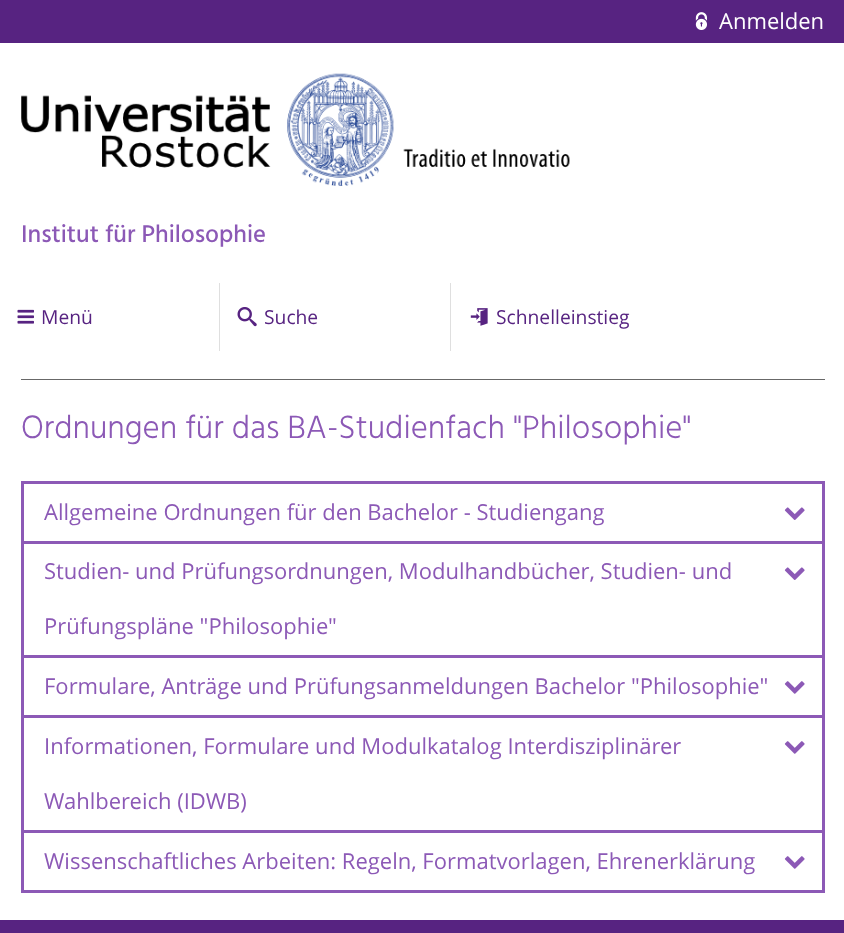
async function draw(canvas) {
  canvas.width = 844;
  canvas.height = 933;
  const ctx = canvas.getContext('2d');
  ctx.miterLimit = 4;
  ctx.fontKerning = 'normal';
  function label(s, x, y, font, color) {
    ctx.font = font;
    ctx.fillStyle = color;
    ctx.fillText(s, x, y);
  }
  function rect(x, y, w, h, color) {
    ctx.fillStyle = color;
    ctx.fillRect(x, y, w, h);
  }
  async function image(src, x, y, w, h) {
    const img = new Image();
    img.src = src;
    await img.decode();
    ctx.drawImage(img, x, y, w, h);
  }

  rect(0, 0, 844, 933, '#fff');
  rect(0, 0, 844, 43, '#572381');
  await image('assets/img1.png', 695, 12, 13, 18);
  label('Anmelden', 719, 29, '22px Open Sans', '#fff');
  await image('assets/img2.png', 21, 73, 549, 113);
  label('Institut für Philosophie', 21, 242, '500 24.75px Hind', '#8c59b6');
  await image('assets/img3.png', 17, 309, 17, 15);
  label('Menü', 41, 324, '19.25px Open Sans', '#572381');
  rect(219, 283, 1, 68, '#dfdfdf');
  await image('assets/img4.png', 237, 307, 20, 20);
  label('Suche', 264, 324, '19.25px Open Sans', '#572381');
  rect(450, 283, 1, 68, '#dfdfdf');
  await image('assets/img5.png', 470, 308, 18, 18);
  label('Schnelleinstieg', 496, 324, '19.25px Open Sans', '#572381');
  rect(21, 379, 804, 1, '#686868');
  label('Ordnungen für das BA-Studienfach "Philosophie"', 21, 438, '300 33px Hind', '#8c59b6');
  ctx.strokeStyle = '#8c59b6';
  ctx.lineWidth = 3;
  ctx.strokeRect(22.5, 482.5, 801, 60);
  label('Allgemeine Ordnungen für den Bachelor - Studiengang', 44, 520, '22px Open Sans', '#8c59b6');
  await image('assets/img6.png', 784, 507, 21, 13);
  ctx.strokeRect(22.5, 542.5, 801, 115);
  label('Studien- und Prüfungsordnungen, Modulhandbücher, Studien- und', 44, 579, '22px Open Sans', '#8c59b6');
  await image('assets/img6.png', 784, 567, 21, 13);
  label('Prüfungspläne "Philosophie"', 44, 634, '22px Open Sans', '#8c59b6');
  rect(24, 658, 798, 1, '#fff');
  ctx.strokeRect(22.5, 656.5, 801, 60);
  label('Formulare, Anträge und Prüfungsanmeldungen Bachelor "Philosophie"', 44, 694, '22px Open Sans', '#8c59b6');
  await image('assets/img7.png', 784, 681, 21, 13);
  ctx.strokeRect(22.5, 716.5, 801, 115);
  label('Informationen, Formulare und Modulkatalog Interdisziplinärer', 44, 754, '22px Open Sans', '#8c59b6');
  await image('assets/img7.png', 784, 741, 21, 13);
  label('Wahlbereich (IDWB)', 44, 809, '22px Open Sans', '#8c59b6');
  ctx.strokeRect(22.5, 831.5, 801, 60);
  label('Wissenschaftliches Arbeiten: Regeln, Formatvorlagen, Ehrenerklärung', 44, 869, '22px Open Sans', '#8c59b6');
  await image('assets/img7.png', 784, 856, 21, 13);
  rect(0, 920, 844, 13, '#572381');
}

draw(document.querySelector('canvas'));
